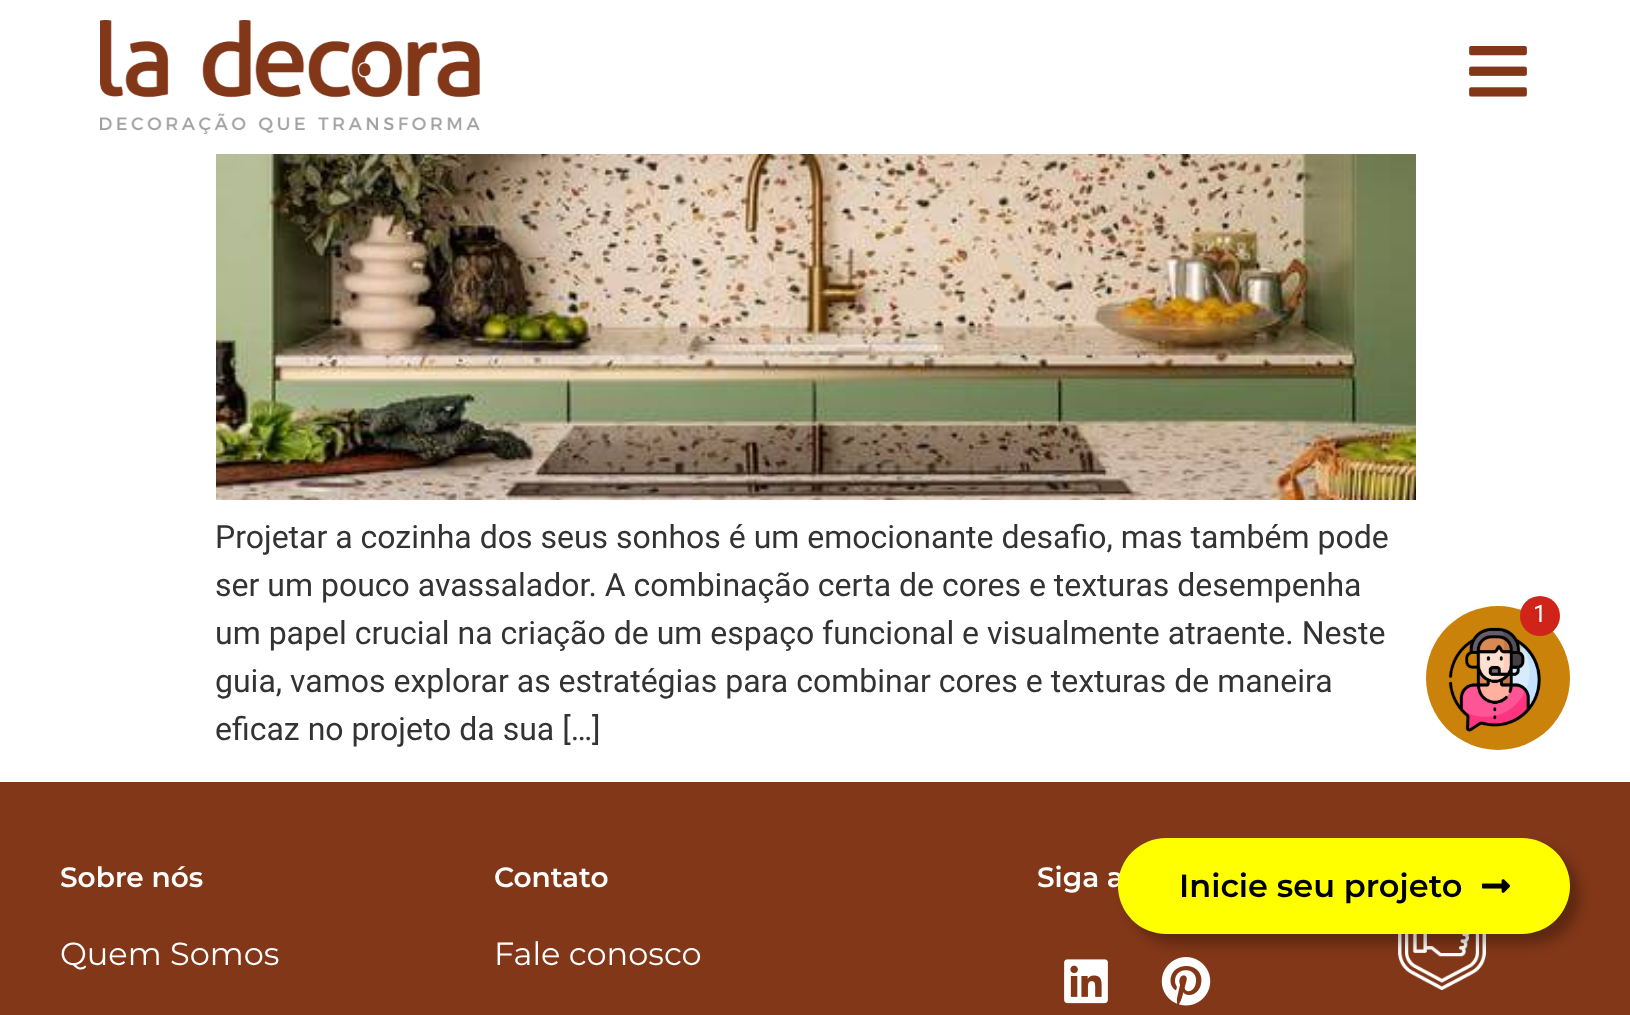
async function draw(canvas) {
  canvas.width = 1630;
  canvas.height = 1015;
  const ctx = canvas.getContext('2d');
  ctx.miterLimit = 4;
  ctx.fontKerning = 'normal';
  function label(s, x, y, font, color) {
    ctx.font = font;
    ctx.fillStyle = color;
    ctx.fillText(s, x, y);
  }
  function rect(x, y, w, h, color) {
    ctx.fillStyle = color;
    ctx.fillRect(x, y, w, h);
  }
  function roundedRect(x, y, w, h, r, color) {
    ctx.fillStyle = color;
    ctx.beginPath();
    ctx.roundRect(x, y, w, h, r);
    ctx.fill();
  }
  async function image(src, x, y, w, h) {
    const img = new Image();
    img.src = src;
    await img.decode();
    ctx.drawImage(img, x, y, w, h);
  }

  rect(0, 0, 1630, 1015, '#fff');
  await image('assets/img1.png', 100, 20, 380, 114);
  await image('assets/img2.png', 1469, 46, 58, 51);
  await image('assets/img3.png', 216, 154, 1200, 346);
  label('Projetar a cozinha dos seus sonhos é um emocionante desafio, mas também pode', 215, 548, '32px Roboto', '#333');
  label('ser um pouco avassalador. A combinação certa de cores e texturas desempenha', 215, 596, '32px Roboto', '#333');
  label('um papel crucial na criação de um espaço funcional e visualmente atraente. Neste', 215, 644, '32px Roboto', '#333');
  label('guia, vamos explorar as estratégias para combinar cores e texturas de maneira', 215, 692, '32px Roboto', '#333');
  label('eficaz no projeto da sua […]', 215, 740, '32px Roboto', '#333');
  ctx.fillStyle = '#cb820a';
  ctx.beginPath();
  ctx.arc(1498, 678, 72, 0, 2 * Math.PI);
  ctx.fill();
  await image('assets/img4.png', 1448, 627, 93, 105);
  ctx.fillStyle = '#d0241b';
  ctx.beginPath();
  ctx.arc(1540, 616, 20, 0, 2 * Math.PI);
  ctx.fill();
  label('1', 1533, 622, '24px Roboto', '#fff');
  rect(0, 782, 1630, 233, '#823718');
  label('Sobre nós', 60, 887, '600 28px Montserrat', '#fff');
  label('Quem Somos', 60, 965, '32px Montserrat', '#fff');
  label('Contato', 494, 887, '600 28px Montserrat', '#fff');
  label('Fale conosco', 494, 965, '32px Montserrat', '#fff');
  label('Siga a', 1037, 887, '600 28px Montserrat', '#fff');
  await image('assets/img7.png', 1161, 957, 50, 49);
  await image('assets/img8.png', 1398, 934, 88, 56);
  ctx.fillStyle = '#00000047';
  ctx.filter = 'blur(6px)';
  ctx.beginPath();
  ctx.roundRect(1128, 848, 452, 96, 48);
  ctx.fill();
  ctx.filter = 'none';
  roundedRect(1118, 838, 452, 96, 48, '#ff0');
  label('Inicie seu projeto', 1179, 897, '600 32px Montserrat', '#000');
  await image('assets/img5.png', 1482, 879, 28, 14);
  await image('assets/img6.png', 1064, 959, 44, 45);
}

draw(document.querySelector('canvas'));
